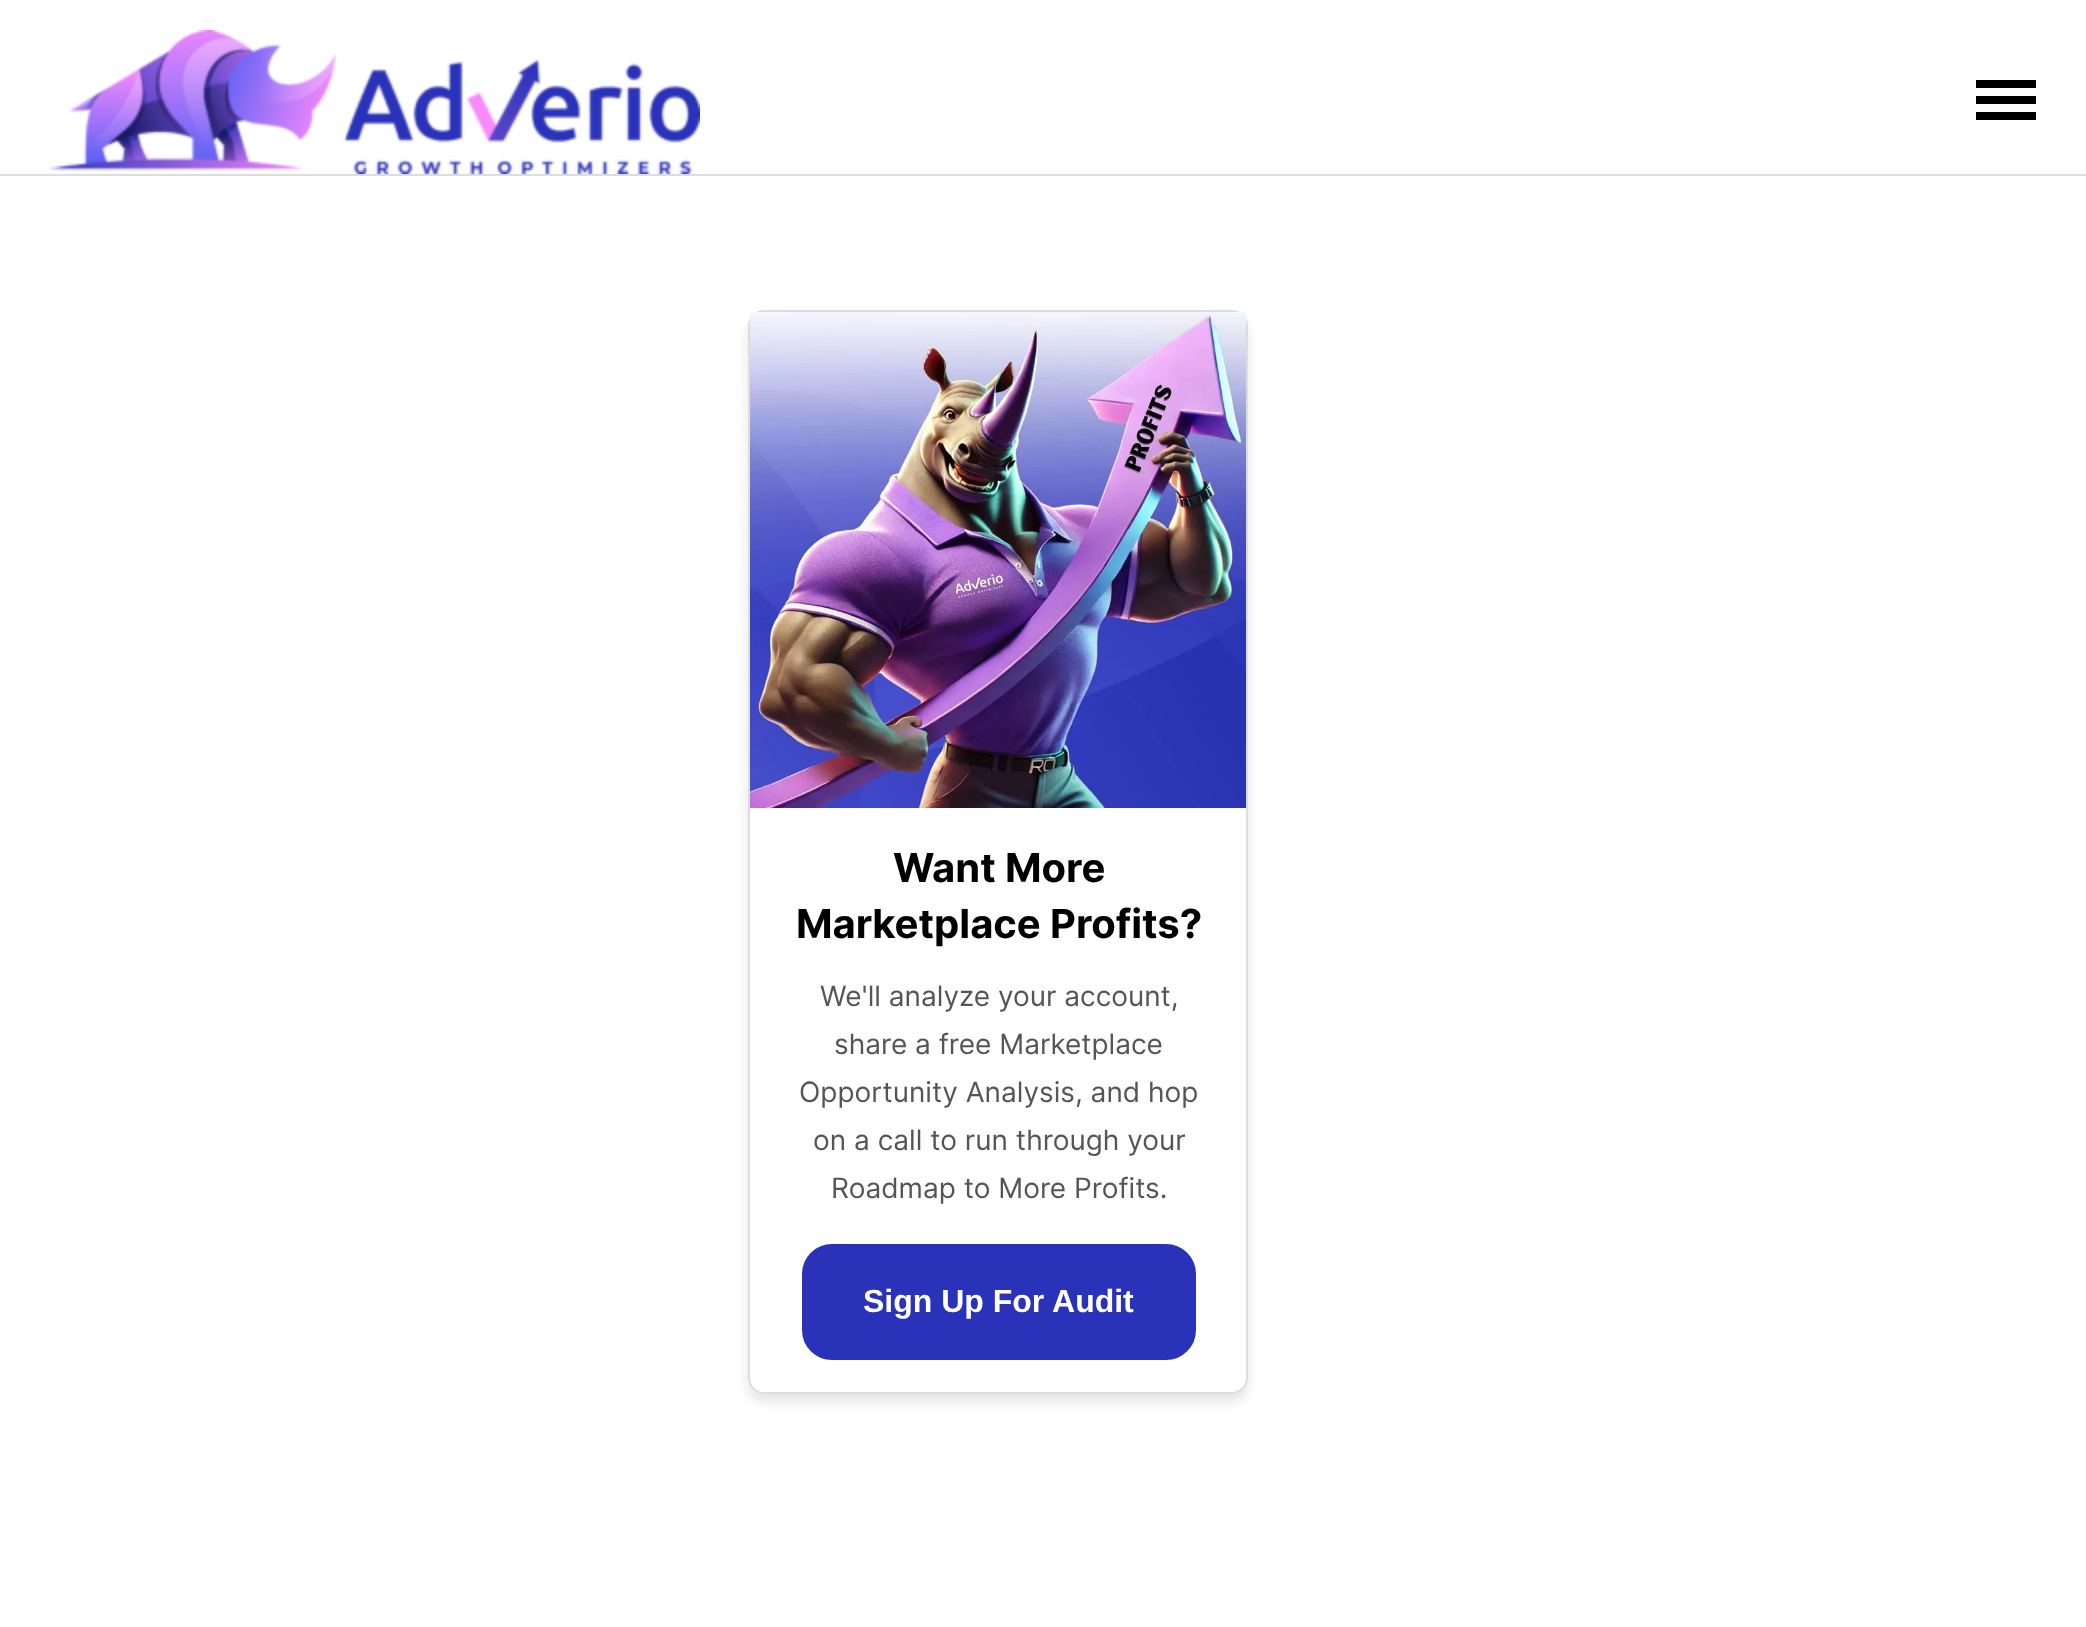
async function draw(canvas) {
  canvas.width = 2086;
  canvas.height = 1627;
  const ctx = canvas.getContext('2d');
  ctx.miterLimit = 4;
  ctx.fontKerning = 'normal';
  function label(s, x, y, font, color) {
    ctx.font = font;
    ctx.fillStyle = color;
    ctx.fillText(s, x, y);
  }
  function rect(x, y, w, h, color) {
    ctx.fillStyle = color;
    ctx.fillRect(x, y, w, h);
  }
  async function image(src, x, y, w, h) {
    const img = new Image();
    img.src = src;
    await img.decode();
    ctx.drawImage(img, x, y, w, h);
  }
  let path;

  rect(0, 0, 2086, 1627, '#fff');
  rect(0, 174, 2086, 2, '#ddd');
  await image('assets/img1.png', 50, 30, 650, 144);
  rect(1976, 80, 60, 8, '#000');
  rect(1976, 96, 60, 8, '#000');
  rect(1976, 112, 60, 8, '#000');
  ctx.save();
  path = new Path2D('M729 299H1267V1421H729ZM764 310H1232C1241 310 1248 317 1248 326V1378C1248 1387 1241 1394 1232 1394H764C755 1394 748 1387 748 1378V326C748 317 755 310 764 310Z');
  ctx.clip(path, 'evenodd');
  ctx.fillStyle = '#0000001a';
  ctx.filter = 'blur(6px)';
  ctx.beginPath();
  ctx.roundRect(748, 318, 500, 1084, 16);
  ctx.fill();
  ctx.filter = 'none';
  ctx.restore();
  ctx.beginPath();
  ctx.roundRect(749, 311, 498, 1082, 15);
  ctx.strokeStyle = '#ddd';
  ctx.lineWidth = 2;
  ctx.stroke();
  await image('assets/img2.png', 750, 312, 496, 496);
  label('Want More', 893, 882, 'bold 40px Inter', '#000');
  label('Marketplace Profits?', 796, 938, 'bold 40px Inter', '#000');
  label('We\'ll analyze your account,', 820, 1006, '28px Inter', '#555');
  label('share a free Marketplace', 834, 1054, '28px Inter', '#555');
  label('Opportunity Analysis, and hop', 799, 1102, '28px Inter', '#555');
  label('on a call to run through your', 813, 1150, '28px Inter', '#555');
  label('Roadmap to More Profits.', 831, 1198, '28px Inter', '#555');
  ctx.fillStyle = '#2b32ba';
  ctx.beginPath();
  ctx.roundRect(803, 1245, 392, 114, 29);
  ctx.fill();
  ctx.strokeStyle = '#2b32ba';
  ctx.stroke();
  label('Sign Up For Audit', 863, 1312, 'bold 32px Liberation Sans', '#fff');
}

draw(document.querySelector('canvas'));
